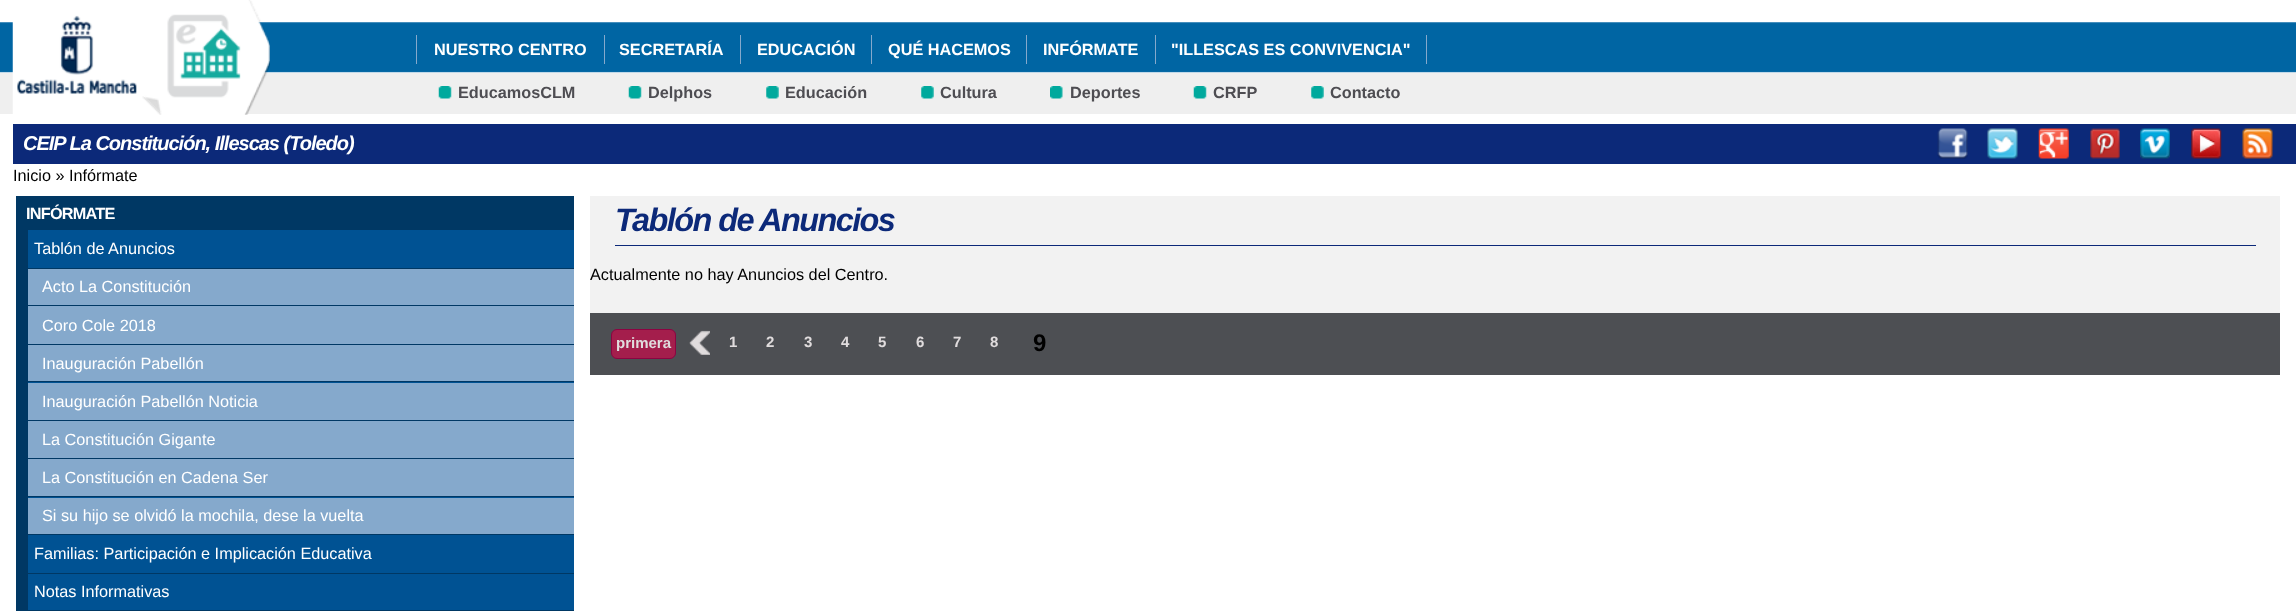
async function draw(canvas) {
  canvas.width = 2296;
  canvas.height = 615;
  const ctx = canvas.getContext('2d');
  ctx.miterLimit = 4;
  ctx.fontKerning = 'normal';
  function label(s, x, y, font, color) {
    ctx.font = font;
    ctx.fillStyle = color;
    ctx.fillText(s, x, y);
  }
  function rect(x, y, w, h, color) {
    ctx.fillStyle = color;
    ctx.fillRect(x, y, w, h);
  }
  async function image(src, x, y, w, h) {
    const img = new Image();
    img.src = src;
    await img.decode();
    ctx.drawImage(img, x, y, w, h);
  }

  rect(0, 0, 2296, 615, '#fff');
  await image('assets/img3.png', 0, 22, 2296, 51);
  rect(0, 73, 2296, 41, '#efefef');
  await image('assets/img1.png', 12, 15, 148, 99);
  await image('assets/img2.png', 142, 0, 128, 115);
  label('NUESTRO CENTRO', 434, 55, 'bold 16.25px Liberation Sans', '#fff');
  rect(604, 35, 1, 29, '#85a9cc');
  rect(416, 35, 1, 29, '#85a9cc');
  label('SECRETARÍA', 619, 55, 'bold 16.25px Liberation Sans', '#fff');
  rect(740, 35, 1, 29, '#85a9cc');
  label('EDUCACIÓN', 757, 55, 'bold 16.25px Liberation Sans', '#fff');
  rect(871, 35, 1, 29, '#85a9cc');
  label('QUÉ HACEMOS', 888, 55, 'bold 16.25px Liberation Sans', '#fff');
  rect(1026, 35, 1, 29, '#85a9cc');
  label('INFÓRMATE', 1043, 55, 'bold 16.25px Liberation Sans', '#fff');
  rect(1155, 35, 1, 29, '#85a9cc');
  label('"ILLESCAS ES CONVIVENCIA"', 1171, 55, 'bold 16.25px Liberation Sans', '#fff');
  rect(1426, 35, 1, 29, '#85a9cc');
  await image('assets/img4.png', 438, 86, 14, 13);
  label('EducamosCLM', 458, 98, 'bold 16.25px Liberation Sans', '#4e4d52');
  await image('assets/img4.png', 628, 86, 14, 13);
  label('Delphos', 648, 98, 'bold 16.25px Liberation Sans', '#4e4d52');
  await image('assets/img5.png', 766, 86, 13, 13);
  label('Educación', 785, 98, 'bold 16.25px Liberation Sans', '#4e4d52');
  await image('assets/img5.png', 921, 86, 13, 13);
  label('Cultura', 940, 98, 'bold 16.25px Liberation Sans', '#4e4d52');
  await image('assets/img6.png', 1050, 86, 13, 13);
  label('Deportes', 1070, 98, 'bold 16.25px Liberation Sans', '#4e4d52');
  await image('assets/img4.png', 1193, 86, 14, 13);
  label('CRFP', 1213, 98, 'bold 16.25px Liberation Sans', '#4e4d52');
  await image('assets/img5.png', 1311, 86, 13, 13);
  label('Contacto', 1330, 98, 'bold 16.25px Liberation Sans', '#4e4d52');
  rect(13, 124, 2283, 40, '#0c2979');
  ctx.letterSpacing = '-1px';
  label('CEIP La Constitución, Illescas (Toledo)', 23, 150, 'italic bold 20px Liberation Sans', '#fff');
  await image('assets/img7.png', 1937, 128, 31, 31);
  await image('assets/img8.png', 1987, 128, 31, 31);
  await image('assets/img9.png', 2038, 128, 31, 31);
  await image('assets/img10.png', 2090, 128, 30, 31);
  await image('assets/img11.png', 2140, 128, 30, 31);
  await image('assets/img12.png', 2191, 128, 31, 31);
  await image('assets/img13.png', 2242, 128, 31, 31);
  ctx.letterSpacing = '0px';
  label('Inicio » Infórmate', 13, 181, '16.25px Liberation Sans', '#000');
  rect(16, 196, 558, 415, '#003864');
  ctx.letterSpacing = '-0.75px';
  label('INFÓRMATE', 26, 219, 'bold 16.25px Liberation Sans', '#fff');
  rect(28, 230, 546, 268, '#005293');
  ctx.letterSpacing = '0px';
  label('Tablón de Anuncios', 34, 254, '16.25px Liberation Sans', '#fff');
  rect(28, 269, 546, 36, '#85a9cc');
  rect(28, 268, 546, 1, '#003864');
  label('Acto La Constitución', 42, 292, '16.25px Liberation Sans', '#fff');
  rect(28, 306, 546, 38, '#85a9cc');
  rect(28, 305, 546, 1, '#003864');
  label('Coro Cole 2018', 42, 331, '16.25px Liberation Sans', '#fff');
  rect(28, 345, 546, 36, '#85a9cc');
  rect(28, 344, 546, 1, '#003864');
  label('Inauguración Pabellón', 42, 369, '16.25px Liberation Sans', '#fff');
  rect(28, 383, 546, 37, '#85a9cc');
  rect(28, 381, 546, 1, '#003864');
  label('Inauguración Pabellón Noticia', 42, 407, '16.25px Liberation Sans', '#fff');
  rect(28, 421, 546, 37, '#85a9cc');
  rect(28, 420, 546, 1, '#003864');
  label('La Constitución Gigante', 42, 445, '16.25px Liberation Sans', '#fff');
  rect(28, 459, 546, 37, '#85a9cc');
  rect(28, 458, 546, 1, '#003864');
  label('La Constitución en Cadena Ser', 42, 483, '16.25px Liberation Sans', '#fff');
  rect(28, 498, 546, 36, '#85a9cc');
  rect(28, 496, 546, 1, '#003864');
  label('Si su hijo se olvidó la mochila, dese la vuelta', 42, 521, '16.25px Liberation Sans', '#fff');
  rect(28, 535, 546, 38, '#005293');
  label('Familias: Participación e Implicación Educativa', 34, 559, '16.25px Liberation Sans', '#fff');
  rect(28, 574, 546, 36, '#005293');
  label('Notas Informativas', 34, 597, '16.25px Liberation Sans', '#fff');
  rect(590, 196, 1690, 117, '#f2f2f2');
  rect(615, 245, 1641, 1, '#0c2979');
  ctx.letterSpacing = '-1.6px';
  label('Tablón de Anuncios', 615, 231, 'italic bold 32.5px Liberation Sans', '#0c2979');
  ctx.letterSpacing = '0px';
  label('Actualmente no hay Anuncios del Centro.', 590, 280, '16.25px Liberation Sans', '#000');
  rect(590, 313, 1690, 62, '#4d4f53');
  ctx.fillStyle = '#a41e4c';
  ctx.beginPath();
  ctx.roundRect(611.5, 329.5, 64, 29, 5.5);
  ctx.fill();
  ctx.strokeStyle = '#8c0442';
  ctx.stroke();
  label('primera', 616, 348, 'bold 15px Liberation Sans', '#e0dcdd');
  await image('assets/img14.png', 689, 330, 21, 25);
  label('1', 729, 347, 'bold 15px Liberation Sans', '#e0dcdd');
  label('2', 766, 347, 'bold 15px Liberation Sans', '#e0dcdd');
  label('3', 804, 347, 'bold 15px Liberation Sans', '#e0dcdd');
  label('4', 841, 347, 'bold 15px Liberation Sans', '#e0dcdd');
  label('5', 878, 347, 'bold 15px Liberation Sans', '#e0dcdd');
  label('6', 916, 347, 'bold 15px Liberation Sans', '#e0dcdd');
  label('7', 953, 347, 'bold 15px Liberation Sans', '#e0dcdd');
  label('8', 990, 347, 'bold 15px Liberation Sans', '#e0dcdd');
  label('9', 1033, 351, 'bold 24px Liberation Sans', '#000');
}

draw(document.querySelector('canvas'));
